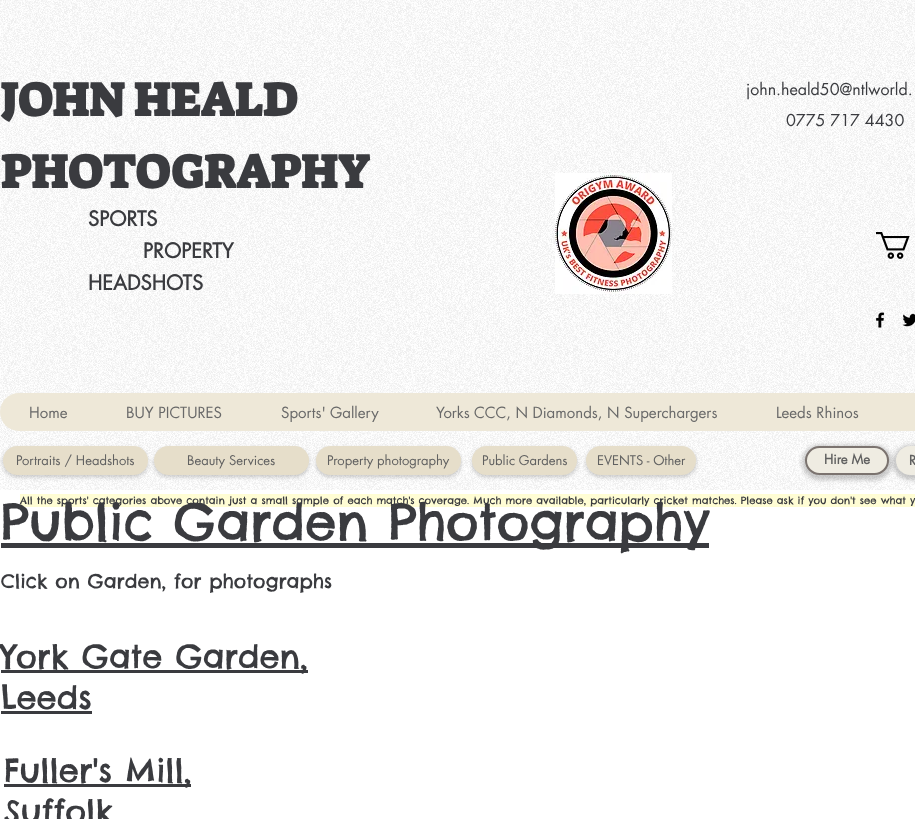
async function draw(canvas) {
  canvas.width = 915;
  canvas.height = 819;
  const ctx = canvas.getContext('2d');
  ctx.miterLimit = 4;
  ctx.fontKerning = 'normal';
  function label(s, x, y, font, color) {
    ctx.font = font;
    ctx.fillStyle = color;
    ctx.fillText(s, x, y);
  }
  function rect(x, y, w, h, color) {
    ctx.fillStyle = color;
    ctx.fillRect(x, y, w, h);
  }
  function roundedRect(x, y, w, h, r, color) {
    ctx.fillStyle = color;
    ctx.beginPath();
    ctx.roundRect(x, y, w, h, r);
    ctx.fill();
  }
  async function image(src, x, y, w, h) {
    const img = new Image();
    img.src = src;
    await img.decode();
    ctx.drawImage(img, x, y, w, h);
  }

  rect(0, 0, 915, 819, '#fff');
  await image('assets/img1.png', 0, 0, 915, 490);
  ctx.wordSpacing = '-1px';
  label('JOHN HEALD', 0, 116, 'bold 48px Suez One', '#3a3b3f');
  ctx.wordSpacing = '0px';
  label('PHOTOGRAPHY', 0, 188, 'bold 48px Suez One', '#3a3b3f');
  label('john.heald50@ntlworld.', 746, 95, '16px futura', '#3a3b3f');
  label('0775 717 4430', 786, 126, '16px futura', '#3a3b3f');
  label('SPORTS', 88, 226, 'bold 20px futura', '#3a3b3f');
  label('PROPERTY', 143, 258, 'bold 20px futura', '#3a3b3f');
  label('HEADSHOTS', 88, 290, 'bold 20px futura', '#3a3b3f');
  await image('assets/img2.png', 555, 173, 117, 121);
  await image('assets/img3.png', 876, 232, 34, 27);
  await image('assets/img4.png', 876, 312, 9, 16);
  await image('assets/img5.png', 902, 313, 13, 14);
  roundedRect(0, 393, 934, 38, 19, '#eee8d8');
  label('Home', 29, 418, '15px futura', '#696969');
  label('BUY PICTURES', 126, 418, '15px futura', '#696969');
  label('Sports\' Gallery', 281, 418, '15px futura', '#696969');
  label('Yorks CCC, N Diamonds, N Superchargers', 436, 418, '15px futura', '#696969');
  label('Leeds Rhinos', 776, 418, '15px futura', '#696969');
  ctx.fillStyle = '#00000033';
  ctx.filter = 'blur(2px)';
  ctx.beginPath();
  ctx.roundRect(3, 448, 145, 29, 14.5);
  ctx.fill();
  ctx.filter = 'none';
  roundedRect(3, 446, 145, 29, 14.5, '#e6deca');
  label('Portraits / Headshots', 16, 465, '13px futura', '#616161');
  ctx.fillStyle = '#00000033';
  ctx.filter = 'blur(2px)';
  ctx.beginPath();
  ctx.roundRect(154, 448, 155, 29, 14.5);
  ctx.fill();
  ctx.filter = 'none';
  roundedRect(154, 446, 155, 29, 14.5, '#e6deca');
  label('Beauty Services', 187, 465, '13px futura', '#616161');
  ctx.fillStyle = '#00000033';
  ctx.filter = 'blur(2px)';
  ctx.beginPath();
  ctx.roundRect(316, 448, 145, 29, 14.5);
  ctx.fill();
  ctx.filter = 'none';
  roundedRect(316, 446, 145, 29, 14.5, '#e6deca');
  label('Property photography', 327, 465, '13px futura', '#616161');
  ctx.fillStyle = '#00000033';
  ctx.filter = 'blur(2px)';
  ctx.beginPath();
  ctx.roundRect(472, 448, 105, 29, 14.5);
  ctx.fill();
  ctx.filter = 'none';
  roundedRect(472, 446, 105, 29, 14.5, '#e6deca');
  label('Public Gardens', 482, 465, '13px futura', '#616161');
  ctx.fillStyle = '#00000033';
  ctx.filter = 'blur(2px)';
  ctx.beginPath();
  ctx.roundRect(586, 448, 110, 29, 14.5);
  ctx.fill();
  ctx.filter = 'none';
  roundedRect(586, 446, 110, 29, 14.5, '#e6deca');
  label('EVENTS - Other', 597, 465, '13px futura', '#616161');
  ctx.fillStyle = '#00000033';
  ctx.filter = 'blur(2px)';
  ctx.beginPath();
  ctx.roundRect(802, 445, 90, 35, 17.5);
  ctx.fill();
  ctx.filter = 'none';
  ctx.fillStyle = '#efece2';
  ctx.beginPath();
  ctx.roundRect(806, 447, 82, 27, 13.5);
  ctx.fill();
  ctx.strokeStyle = '#7b736f';
  ctx.lineWidth = 2;
  ctx.stroke();
  label('Hire Me', 824, 464, 'bold 13px futura', '#616161');
  ctx.fillStyle = '#00000033';
  ctx.filter = 'blur(2px)';
  ctx.beginPath();
  ctx.roundRect(893, 445, 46, 35, 17.5);
  ctx.fill();
  ctx.filter = 'none';
  roundedRect(896, 446, 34, 29, 14.5, '#efece2');
  label('R', 909, 465, 'bold 13px futura', '#616161');
  rect(20, 494, 895, 13, '#fffdd4');
  label('All the sports\' categories above contain just a small sample of each match\'s coverage. Much more available, particularly cricket matches. Please ask if you don\'t see what y', 20, 504, '10px Chelsea Market', '#3a3b3f');
  rect(1, 543, 708, 5, '#3a3b3f');
  label('Public Garden Photography', 1, 540, '50px Chelsea Market', '#3a3b3f');
  label('Click on Garden, for photographs', 1, 588, '19px Chelsea Market', '#3a3b3f');
  rect(1, 670, 307, 3, '#3a3b3f');
  label('York Gate Garden,', 1, 668, '32px Chelsea Market', '#3a3b3f');
  label('Leeds', 1, 709, '32px Chelsea Market', '#3a3b3f');
  rect(1, 711, 91, 3, '#3a3b3f');
  rect(4, 784, 187, 3, '#3a3b3f');
  label('Fuller\'s Mill,', 4, 782, '32px Chelsea Market', '#3a3b3f');
  label('Suffolk', 4, 823, '32px Chelsea Market', '#3a3b3f');
}

draw(document.querySelector('canvas'));
